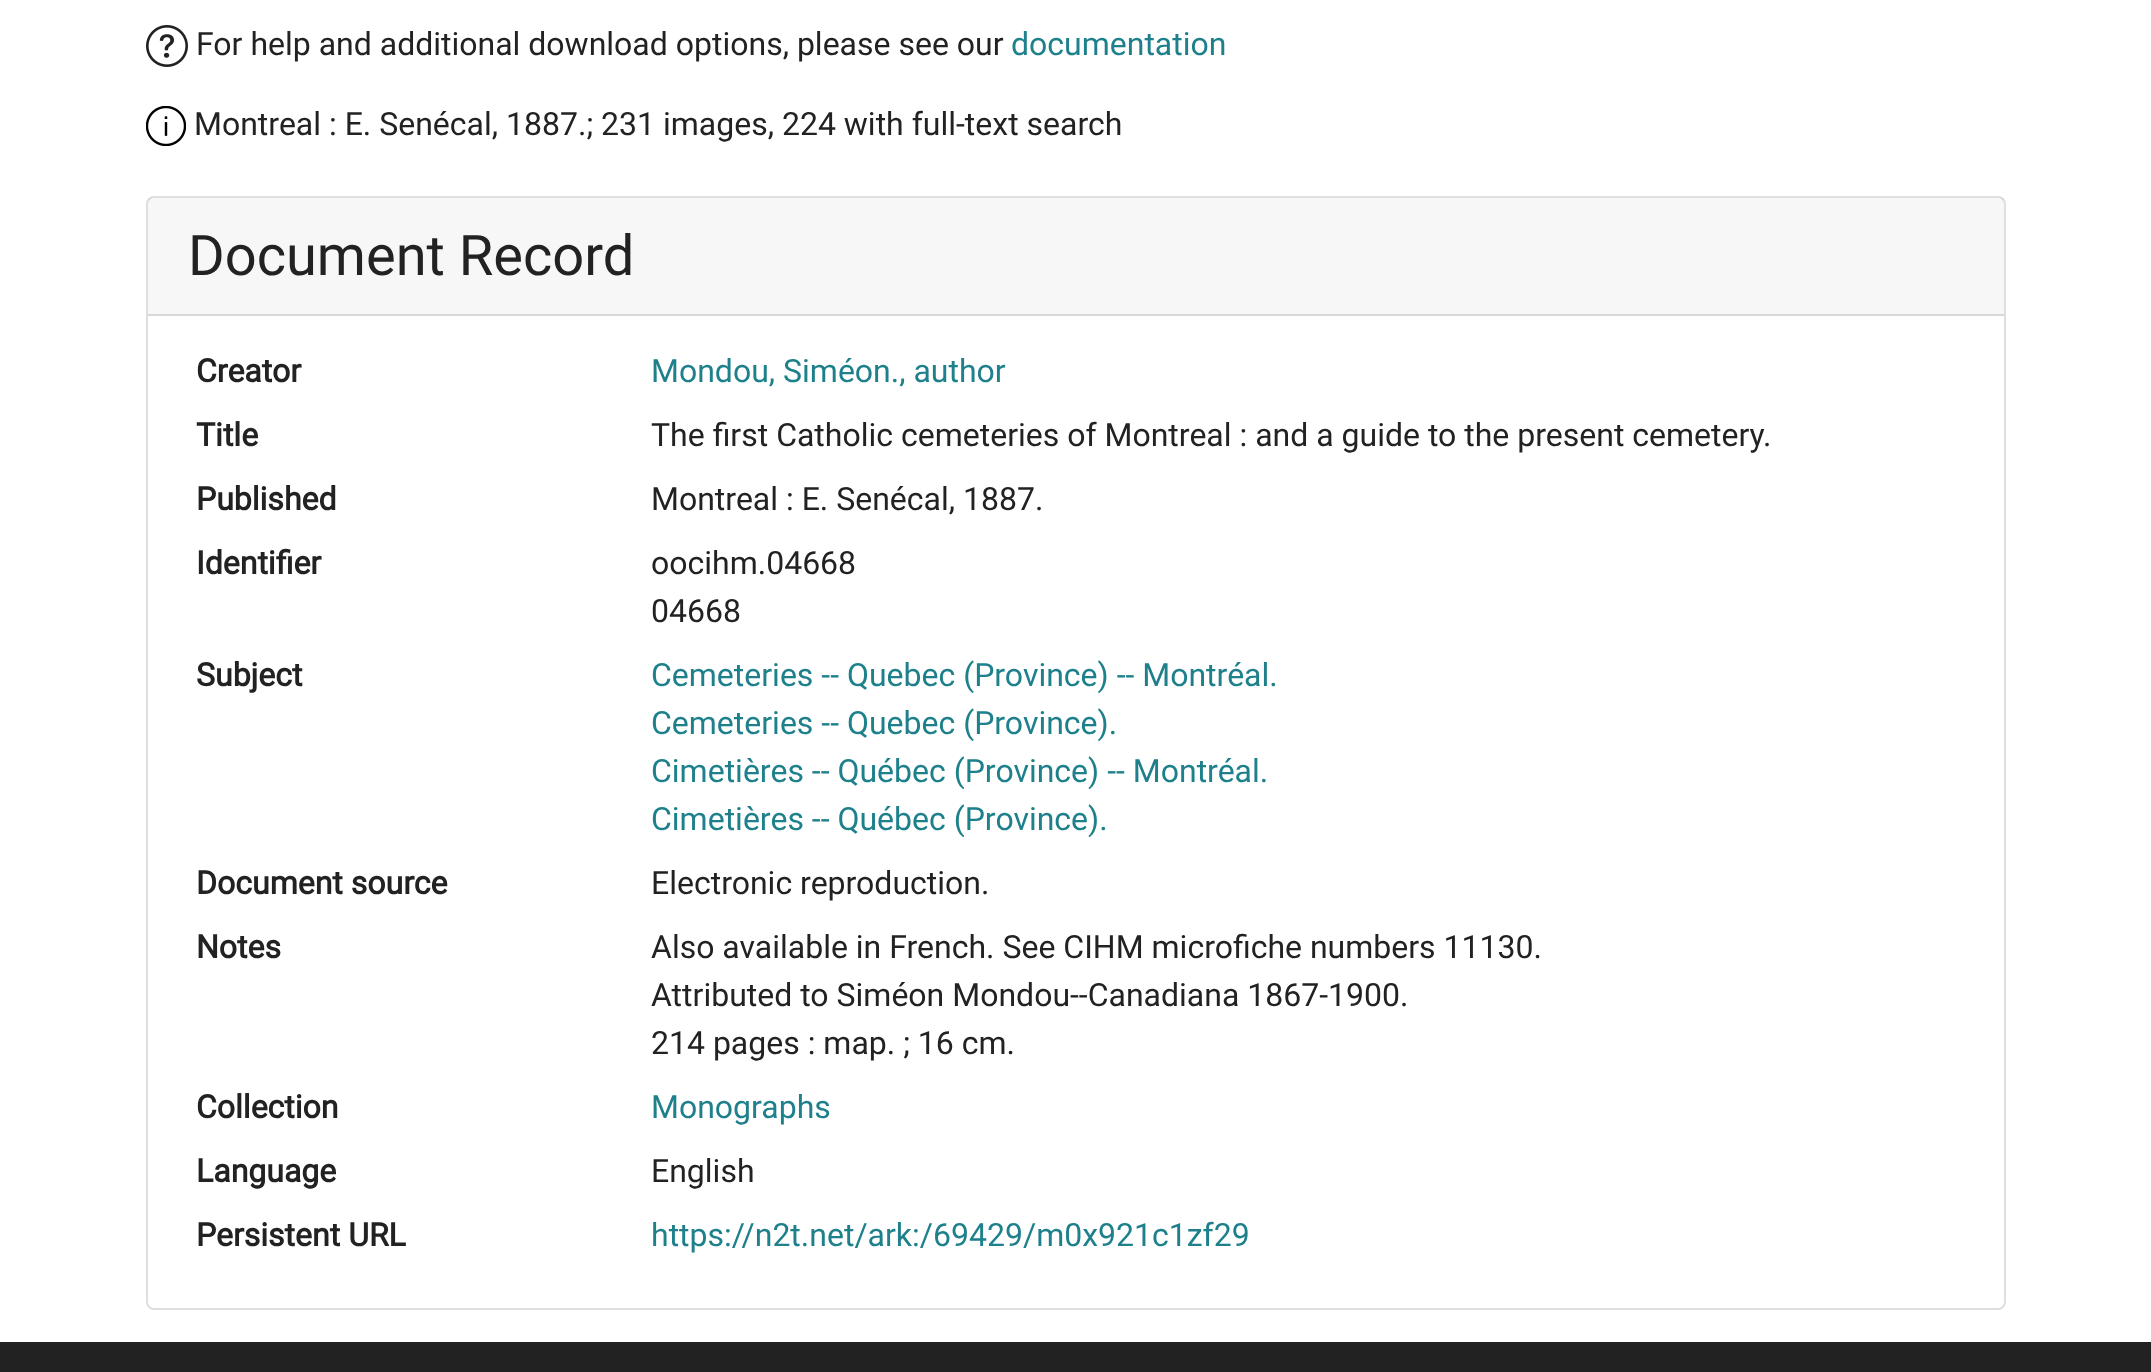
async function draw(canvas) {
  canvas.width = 2151;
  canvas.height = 1372;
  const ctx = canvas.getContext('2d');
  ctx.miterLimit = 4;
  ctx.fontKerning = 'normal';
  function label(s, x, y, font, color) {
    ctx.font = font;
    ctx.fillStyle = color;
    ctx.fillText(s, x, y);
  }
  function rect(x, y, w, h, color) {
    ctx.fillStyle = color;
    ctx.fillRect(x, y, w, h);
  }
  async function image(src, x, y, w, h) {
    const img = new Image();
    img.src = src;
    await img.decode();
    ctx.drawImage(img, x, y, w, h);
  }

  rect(0, 0, 2151, 1372, '#fff');
  await image('assets/img1.png', 146, 25, 42, 42);
  label('For help and additional download options, please see our', 196, 55, '32px Roboto', '#222');
  label('documentation', 1011, 55, '32px Roboto', '#1d808b');
  await image('assets/img2.png', 146, 106, 40, 40);
  label('Montreal : E. Senécal, 1887.; 231 images, 224 with full-text search', 194, 135, '32px Roboto', '#222');
  ctx.beginPath();
  ctx.roundRect(147, 197, 1858, 1112, 7);
  ctx.strokeStyle = '#dfdfdf';
  ctx.lineWidth = 2;
  ctx.stroke();
  rect(148, 198, 1856, 116, '#00000008');
  rect(148, 314, 1856, 2, '#d8d8d8');
  label('Document Record', 188, 275, '56px Roboto', '#222');
  label('Creator', 196, 382, 'bold 32px Roboto', '#222');
  label('Mondou, Siméon., author', 651, 382, '32px Roboto', '#1d808b');
  label('Title', 196, 446, 'bold 32px Roboto', '#222');
  label('The first Catholic cemeteries of Montreal : and a guide to the present cemetery.', 651, 446, '32px Roboto', '#222');
  label('Published', 196, 510, 'bold 32px Roboto', '#222');
  label('Montreal : E. Senécal, 1887.', 651, 510, '32px Roboto', '#222');
  label('Identifier', 196, 574, 'bold 32px Roboto', '#222');
  label('oocihm.04668', 651, 574, '32px Roboto', '#222');
  label('04668', 651, 622, '32px Roboto', '#222');
  label('Subject', 196, 686, 'bold 32px Roboto', '#222');
  label('Cemeteries -- Quebec (Province) -- Montréal.', 651, 686, '32px Roboto', '#1d808b');
  label('Cemeteries -- Quebec (Province).', 651, 734, '32px Roboto', '#1d808b');
  label('Cimetières -- Québec (Province) -- Montréal.', 651, 782, '32px Roboto', '#1d808b');
  label('Cimetières -- Québec (Province).', 651, 830, '32px Roboto', '#1d808b');
  label('Document source', 196, 894, 'bold 32px Roboto', '#222');
  label('Electronic reproduction.', 651, 894, '32px Roboto', '#222');
  label('Notes', 196, 958, 'bold 32px Roboto', '#222');
  label('Also available in French. See CIHM microfiche numbers 11130.', 651, 958, '32px Roboto', '#222');
  label('Attributed to Siméon Mondou--Canadiana 1867-1900.', 651, 1006, '32px Roboto', '#222');
  label('214 pages : map. ; 16 cm.', 651, 1054, '32px Roboto', '#222');
  label('Collection', 196, 1118, 'bold 32px Roboto', '#222');
  label('Monographs', 651, 1118, '32px Roboto', '#1d808b');
  label('Language', 196, 1182, 'bold 32px Roboto', '#222');
  label('English', 651, 1182, '32px Roboto', '#222');
  label('Persistent URL', 196, 1246, 'bold 32px Roboto', '#222');
  label('https://n2t.net/ark:/69429/m0x921c1zf29', 651, 1246, '32px Roboto', '#1d808b');
  rect(0, 1342, 2151, 30, '#222');
}

draw(document.querySelector('canvas'));
